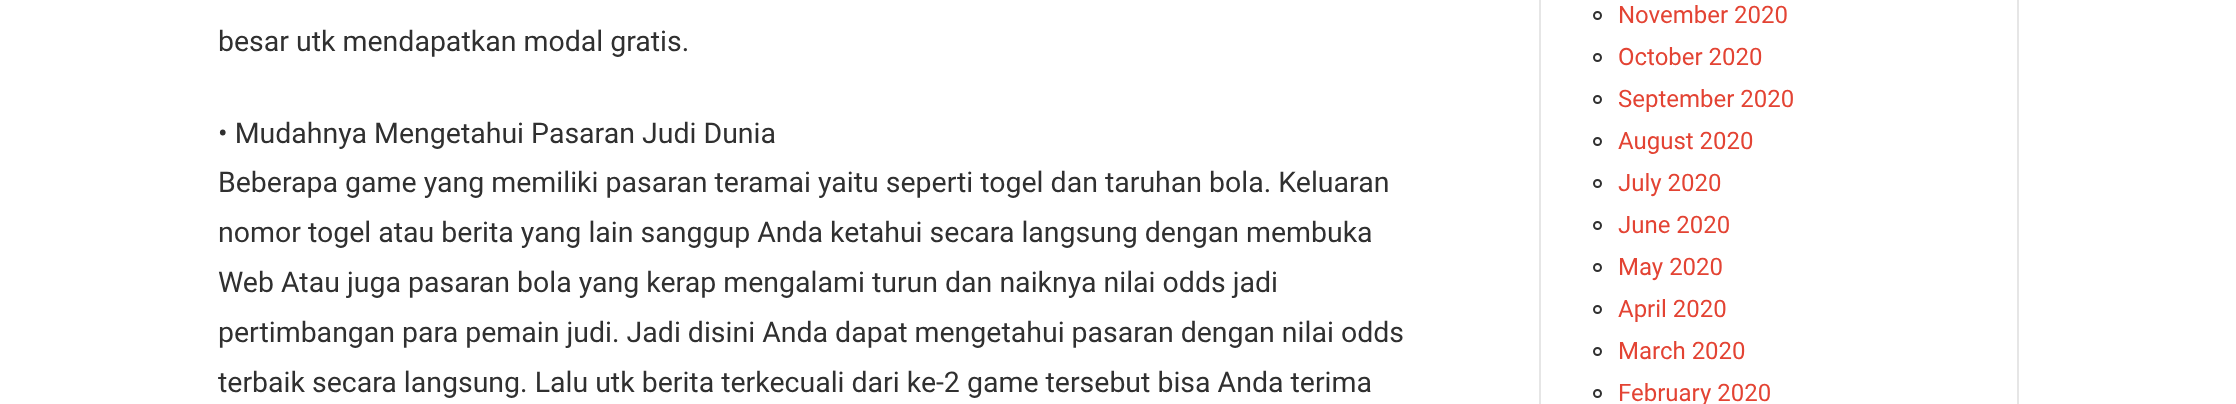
async function draw(canvas) {
  canvas.width = 2236;
  canvas.height = 404;
  const ctx = canvas.getContext('2d');
  ctx.miterLimit = 4;
  ctx.fontKerning = 'normal';
  function label(s, x, y, font, color) {
    ctx.font = font;
    ctx.fillStyle = color;
    ctx.fillText(s, x, y);
  }
  function rect(x, y, w, h, color) {
    ctx.fillStyle = color;
    ctx.fillRect(x, y, w, h);
  }

  rect(0, 0, 2236, 404, '#fff');
  label('besar utk mendapatkan modal gratis.', 218, 51, '28.5px Roboto', '#303030');
  label('• Mudahnya Mengetahui Pasaran Judi Dunia', 218, 143, '28.5px Roboto', '#303030');
  label('Beberapa game yang memiliki pasaran teramai yaitu seperti togel dan taruhan bola. Keluaran', 218, 192, '28.5px Roboto', '#303030');
  label('nomor togel atau berita yang lain sanggup Anda ketahui secara langsung dengan membuka', 218, 242, '28.5px Roboto', '#303030');
  label('Web Atau juga pasaran bola yang kerap mengalami turun dan naiknya nilai odds jadi', 218, 292, '28.5px Roboto', '#303030');
  label('pertimbangan para pemain judi. Jadi disini Anda dapat mengetahui pasaran dengan nilai odds', 218, 342, '28.5px Roboto', '#303030');
  label('terbaik secara langsung. Lalu utk berita terkecuali dari ke-2 game tersebut bisa Anda terima', 218, 392, '28.5px Roboto', '#303030');
  ctx.strokeStyle = '#e6e6e6';
  ctx.lineWidth = 2;
  ctx.strokeRect(1540, -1, 478, 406);
  ctx.beginPath();
  ctx.arc(1597.5, 15.5, 3.5, 0, 2 * Math.PI);
  ctx.strokeStyle = '#303030';
  ctx.stroke();
  label('November 2020', 1618, 23, '24px Roboto', '#e34333');
  ctx.beginPath();
  ctx.arc(1597.5, 57.5, 3.5, 0, 2 * Math.PI);
  ctx.stroke();
  label('October 2020', 1618, 65, '24px Roboto', '#e34333');
  ctx.beginPath();
  ctx.arc(1597.5, 99.5, 3.5, 0, 2 * Math.PI);
  ctx.stroke();
  label('September 2020', 1618, 107, '24px Roboto', '#e34333');
  ctx.beginPath();
  ctx.arc(1597.5, 141.5, 3.5, 0, 2 * Math.PI);
  ctx.stroke();
  label('August 2020', 1618, 149, '24px Roboto', '#e34333');
  ctx.beginPath();
  ctx.arc(1597.5, 183.5, 3.5, 0, 2 * Math.PI);
  ctx.stroke();
  label('July 2020', 1618, 191, '24px Roboto', '#e34333');
  ctx.beginPath();
  ctx.arc(1597.5, 225.5, 3.5, 0, 2 * Math.PI);
  ctx.stroke();
  label('June 2020', 1618, 233, '24px Roboto', '#e34333');
  ctx.beginPath();
  ctx.arc(1597.5, 267.5, 3.5, 0, 2 * Math.PI);
  ctx.stroke();
  label('May 2020', 1618, 275, '24px Roboto', '#e34333');
  ctx.beginPath();
  ctx.arc(1597.5, 309.5, 3.5, 0, 2 * Math.PI);
  ctx.stroke();
  label('April 2020', 1618, 317, '24px Roboto', '#e34333');
  ctx.beginPath();
  ctx.arc(1597.5, 351.5, 3.5, 0, 2 * Math.PI);
  ctx.stroke();
  label('March 2020', 1618, 359, '24px Roboto', '#e34333');
  ctx.beginPath();
  ctx.arc(1597.5, 393.5, 3.5, 0, 2 * Math.PI);
  ctx.stroke();
  label('February 2020', 1618, 401, '24px Roboto', '#e34333');
}

draw(document.querySelector('canvas'));
